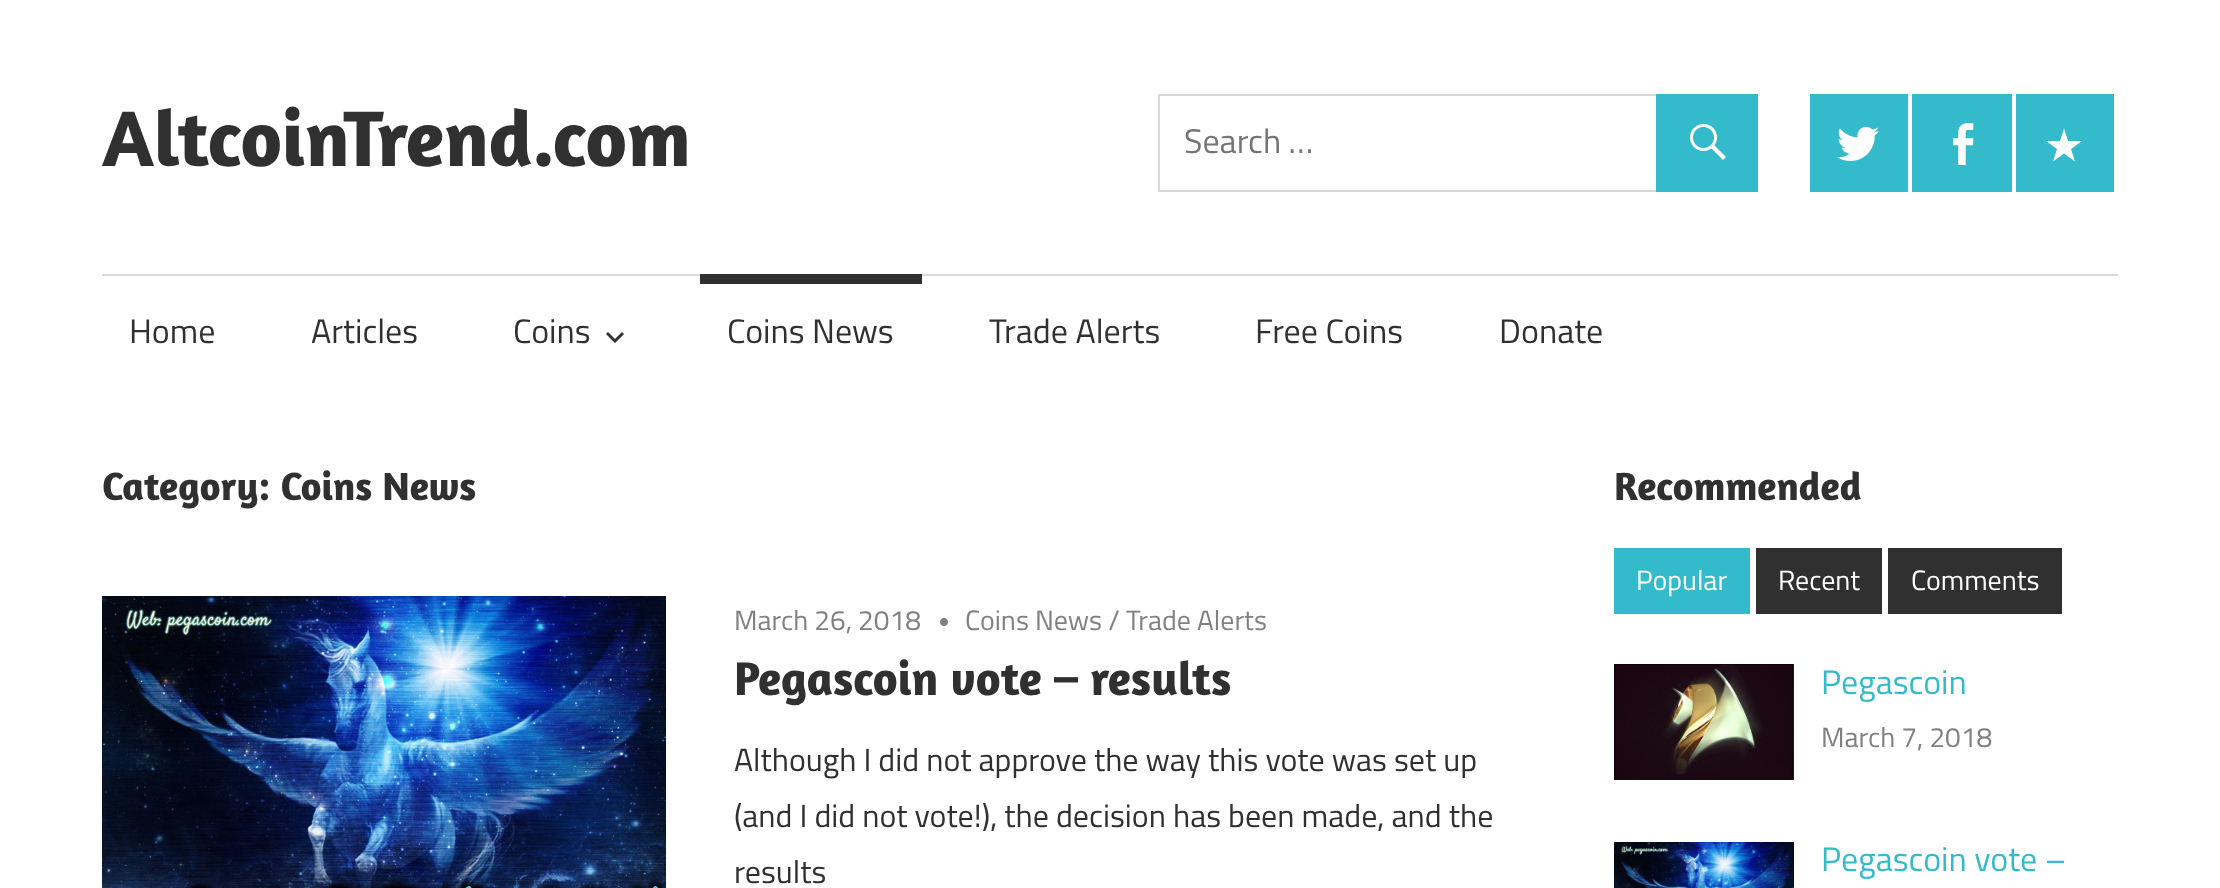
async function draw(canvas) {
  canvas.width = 2220;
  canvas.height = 888;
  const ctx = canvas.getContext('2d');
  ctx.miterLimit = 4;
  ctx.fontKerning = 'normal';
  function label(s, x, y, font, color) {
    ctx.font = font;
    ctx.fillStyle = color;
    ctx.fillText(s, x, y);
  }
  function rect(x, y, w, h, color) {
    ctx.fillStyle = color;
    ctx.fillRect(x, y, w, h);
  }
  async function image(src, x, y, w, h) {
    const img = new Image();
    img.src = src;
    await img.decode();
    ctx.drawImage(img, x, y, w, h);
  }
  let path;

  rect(0, 0, 2220, 888, '#fff');
  label('AltcoinTrend.com', 102, 166, 'bold 80px Amaranth', '#303030');
  ctx.strokeStyle = '#d9d9d9';
  ctx.lineWidth = 2;
  ctx.strokeRect(1159, 95, 598, 96);
  label('Search …', 1184, 153, '34px Titillium Web', '#757575');
  rect(1656, 94, 102, 98, '#3bc');
  await image('assets/img1.png', 1690, 124, 36, 36);
  rect(1810, 94, 98, 98, '#3bc');
  await image('assets/img2.png', 1837, 126, 42, 35);
  rect(1912, 94, 100, 98, '#3bc');
  await image('assets/img3.png', 1953, 123, 21, 42);
  rect(2016, 94, 98, 98, '#3bc');
  ctx.fillStyle = '#fff';
  path = new Path2D('M2082 141L2071 149L2075 161.5L2064 153.5L2053 161.5L2057 149L2046 141H2060L2064 128.5L2068 141Z');
  ctx.fill(path);
  rect(102, 274, 2016, 2, '#d9d9d9');
  label('Home', 129, 343, '34px Titillium Web', '#303030');
  label('Articles', 311, 343, '34px Titillium Web', '#303030');
  label('Coins', 513, 343, '34px Titillium Web', '#303030');
  path = new Path2D('M622 332L624 334L615 343L606 334L608 332L615 339Z');
  ctx.fill(path);
  rect(700, 274, 222, 10, '#303030');
  label('Coins News', 727, 343, '34px Titillium Web', '#303030');
  label('Trade Alerts', 989, 343, '34px Titillium Web', '#303030');
  label('Free Coins', 1255, 343, '34px Titillium Web', '#303030');
  label('Donate', 1499, 343, '34px Titillium Web', '#303030');
  label('Category: Coins News', 102, 500, 'bold 40px Amaranth', '#303030');
  await image('assets/img4.png', 102, 596, 564, 292);
  label('March 26, 2018', 734, 630, '28px Titillium Web', '#808080');
  await image('assets/img5.png', 940, 618, 8, 8);
  label('Coins News / Trade Alerts', 965, 630, '28px Titillium Web', '#808080');
  label('Pegascoin vote – results', 734, 695, 'bold 48px Amaranth', '#303030');
  label('Although I did not approve the way this vote was set up', 734, 771, '32px Titillium Web', '#303030');
  label('(and I did not vote!), the decision has been made, and the', 734, 827, '32px Titillium Web', '#303030');
  label('results', 734, 883, '32px Titillium Web', '#303030');
  label('Recommended', 1614, 500, 'bold 40px Amaranth', '#303030');
  rect(1614, 548, 136, 66, '#3bc');
  label('Popular', 1636, 590, '28px Titillium Web', '#fff');
  rect(1756, 548, 126, 66, '#303030');
  label('Recent', 1778, 590, '28px Titillium Web', '#fff');
  rect(1888, 548, 174, 66, '#303030');
  label('Comments', 1911, 590, '28px Titillium Web', '#fff');
  await image('assets/img6.png', 1614, 664, 180, 116);
  label('Pegascoin', 1821, 694, '34px Titillium Web', '#3bc');
  label('March 7, 2018', 1821, 747, '28px Titillium Web', '#808080');
  await image('assets/img7.png', 1614, 842, 180, 46);
  label('Pegascoin vote –', 1821, 871, '34px Titillium Web', '#3bc');
}

draw(document.querySelector('canvas'));
